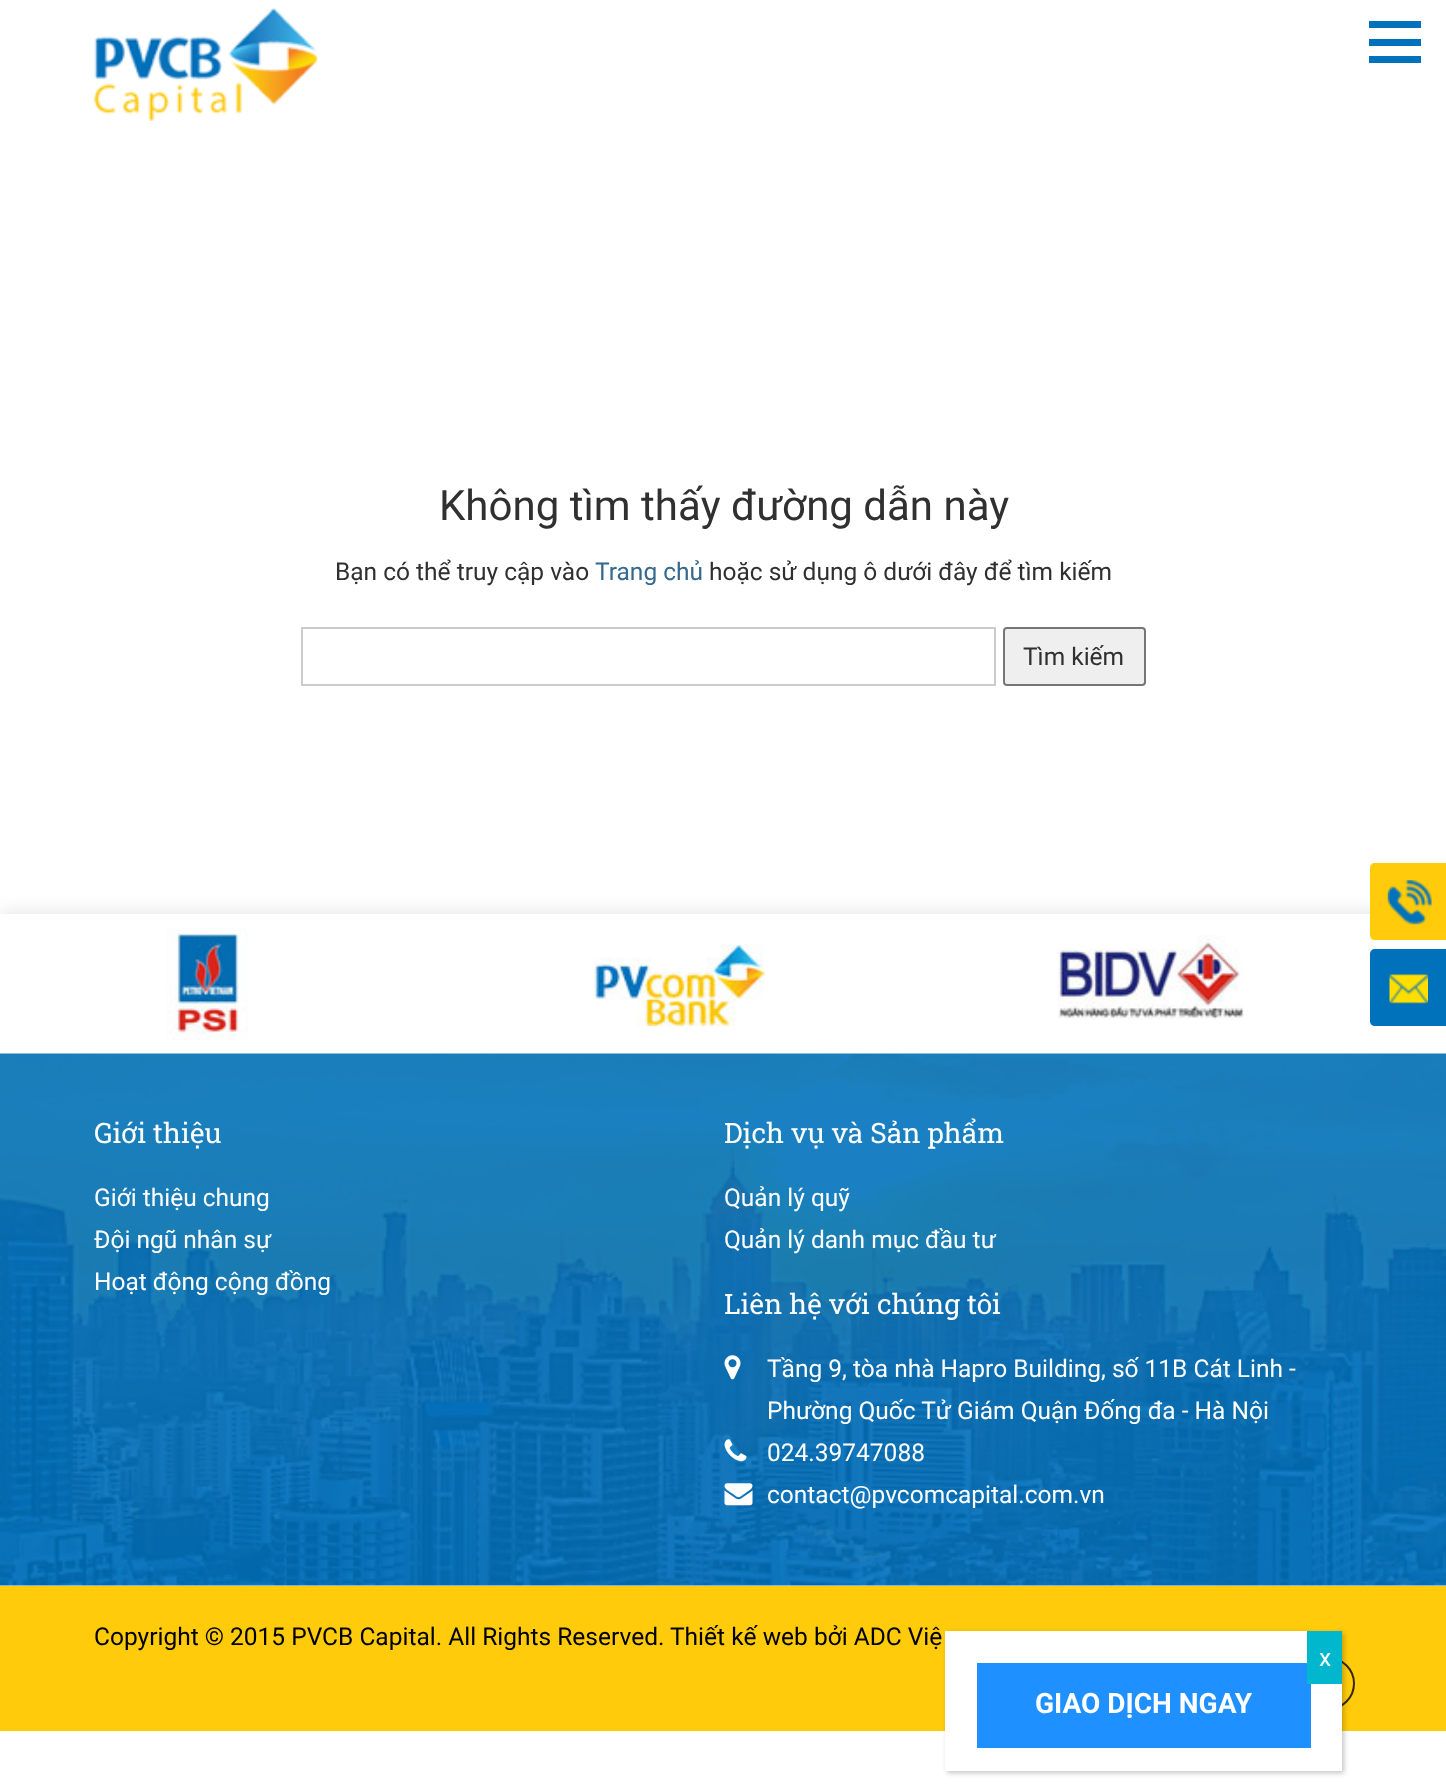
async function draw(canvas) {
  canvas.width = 1446;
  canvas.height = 1788;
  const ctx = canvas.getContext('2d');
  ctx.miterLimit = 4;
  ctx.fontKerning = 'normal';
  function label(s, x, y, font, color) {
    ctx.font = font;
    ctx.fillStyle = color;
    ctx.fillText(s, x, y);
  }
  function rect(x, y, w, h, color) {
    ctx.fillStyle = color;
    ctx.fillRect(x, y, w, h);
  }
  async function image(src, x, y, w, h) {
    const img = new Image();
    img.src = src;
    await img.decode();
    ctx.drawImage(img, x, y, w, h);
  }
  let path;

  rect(0, 0, 1446, 1788, '#fff');
  await image('assets/img1.png', 94, 8, 224, 113);
  rect(1369, 56, 52, 7, '#0072bc');
  rect(1369, 21, 52, 7, '#0072bc');
  rect(1369, 39, 52, 7, '#0072bc');
  label('Không tìm thấy đường dẫn này', 439, 520, '42px Roboto', '#303030');
  label('Bạn có thể truy cập vào', 335, 580, '24.5px Roboto', '#303030');
  label('Trang chủ', 595, 580, '24.5px Roboto', '#35698d');
  label('hoặc sử dụng ô dưới đây để tìm kiếm', 709, 580, '24.5px Roboto', '#303030');
  ctx.strokeStyle = '#ccc';
  ctx.lineWidth = 2;
  ctx.strokeRect(302, 628, 693, 57);
  ctx.fillStyle = '#efefef';
  ctx.beginPath();
  ctx.roundRect(1004, 628, 141, 57, 3);
  ctx.fill();
  ctx.strokeStyle = '#767676';
  ctx.stroke();
  label('Tìm kiếm', 1023, 665, '24.5px Roboto', '#303030');
  ctx.save();
  path = new Path2D('M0 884H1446V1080H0ZM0 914H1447V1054H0Z');
  ctx.clip(path, 'evenodd');
  ctx.fillStyle = '#0000001a';
  ctx.filter = 'blur(9px)';
  ctx.beginPath();
  ctx.rect(0, 912, 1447, 140);
  ctx.fill();
  ctx.filter = 'none';
  ctx.restore();
  ctx.fillStyle = '#ffcb0a';
  path = new Path2D('M1375 863H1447V940H1375C1372 940 1370 938 1370 935V868C1370 865 1372 863 1375 863Z');
  ctx.fill(path);
  await image('assets/img2.png', 1387, 880, 45, 45);
  ctx.fillStyle = '#0072bc';
  path = new Path2D('M1375 949H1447V1026H1375C1372 1026 1370 1024 1370 1021V954C1370 951 1372 949 1375 949Z');
  ctx.fill(path);
  await image('assets/img3.png', 1389, 974, 39, 30);
  await image('assets/img4.png', 166, 928, 82, 112);
  await image('assets/img5.png', 594, 943, 171, 83);
  await image('assets/img6.png', 1056, 935, 188, 85);
  await image('assets/img7.png', 0, 1053, 1446, 533);
  label('Giới thiệu', 94, 1143, '28px Roboto Slab', '#fff');
  label('Giới thiệu chung', 94, 1206, '24.5px Roboto', '#fff');
  label('Đội ngũ nhân sự', 94, 1248, '24.5px Roboto', '#fff');
  label('Hoạt động cộng đồng', 94, 1290, '24.5px Roboto', '#fff');
  label('Dịch vụ và Sản phẩm', 724, 1143, '28px Roboto Slab', '#fff');
  label('Quản lý quỹ', 724, 1206, '24.5px Roboto', '#fff');
  label('Quản lý danh mục đầu tư', 724, 1248, '24.5px Roboto', '#fff');
  label('Liên hệ với chúng tôi', 724, 1314, '28px Roboto Slab', '#fff');
  await image('assets/img8.png', 724, 1355, 17, 25);
  label('Tầng 9, tòa nhà Hapro Building, số 11B Cát Linh -', 767, 1377, '24.5px Roboto', '#fff');
  label('Phường Quốc Tử Giám Quận Đống đa - Hà Nội', 767, 1419, '24.5px Roboto', '#fff');
  await image('assets/img9.png', 724, 1439, 23, 23);
  label('024.39747088', 767, 1461, '24.5px Roboto', '#fff');
  await image('assets/img10.png', 724, 1483, 29, 23);
  label('contact@pvcomcapital.com.vn', 767, 1503, '24.5px Roboto', '#fff');
  rect(0, 1586, 1446, 145, '#ffcb0a');
  label('Copyright © 2015 PVCB Capital. All Rights Reserved.', 94, 1645, '24.5px Roboto', '#000');
  label('Thiết kế web bởi ADC Việ', 670, 1645, '24.5px Roboto', '#000');
  ctx.beginPath();
  ctx.arc(1328.5, 1683.5, 25.5, 0, 2 * Math.PI);
  ctx.strokeStyle = '#342902';
  ctx.stroke();
  ctx.fillStyle = '#0202023b';
  ctx.filter = 'blur(2.5px)';
  ctx.beginPath();
  ctx.rect(947, 1633, 397, 140);
  ctx.fill();
  ctx.filter = 'none';
  rect(945, 1631, 397, 140, '#fff');
  rect(977, 1663, 334, 85, '#1e90ff');
  rect(1307, 1631, 35, 53, '#00b7cd');
  label('x', 1319, 1666, '24.5px Roboto', '#fff');
  label('GIAO DỊCH NGAY', 1035, 1713, 'bold 28px Roboto', '#fff');
}

draw(document.querySelector('canvas'));
